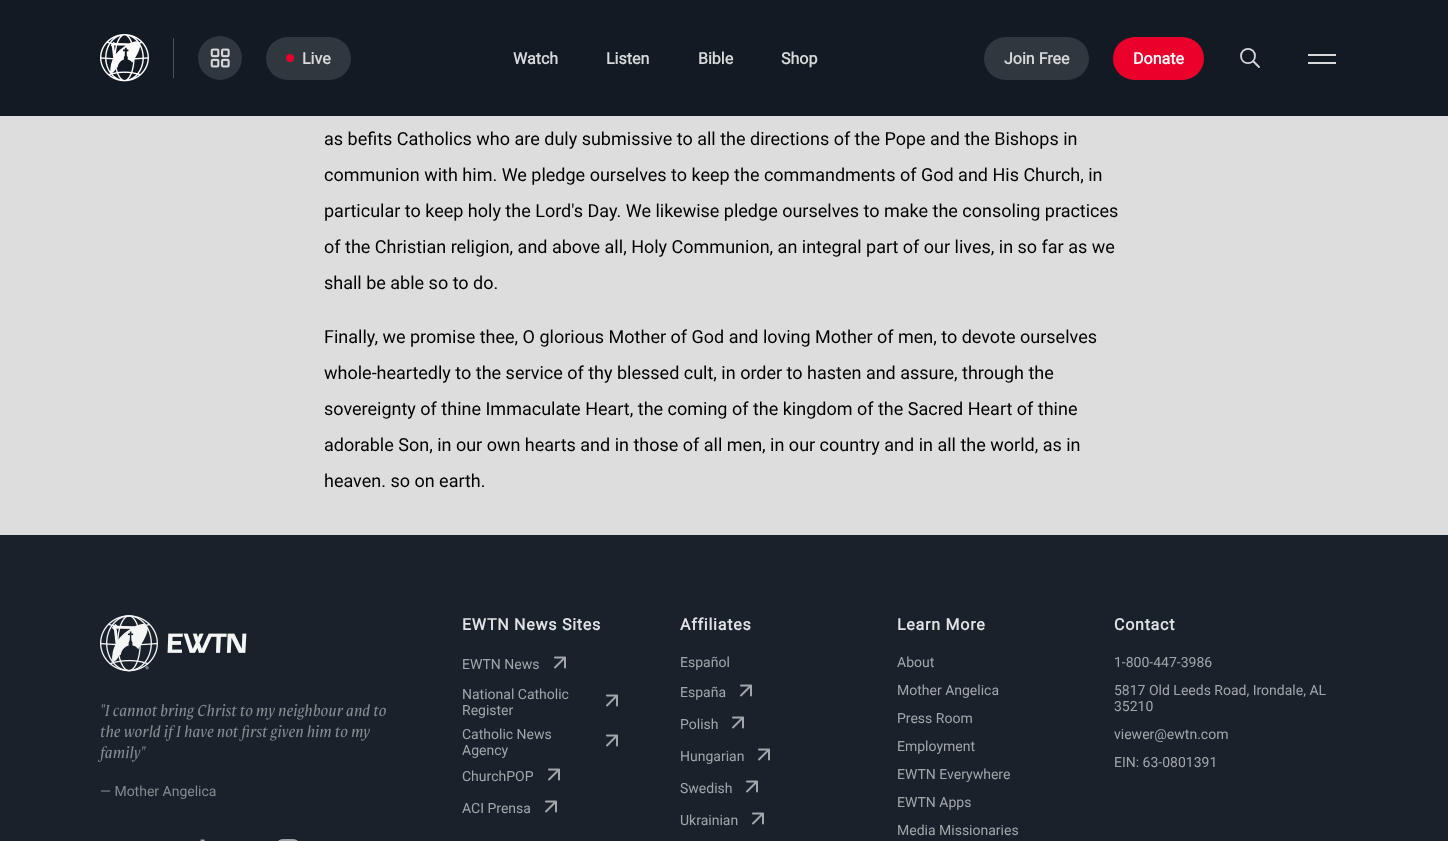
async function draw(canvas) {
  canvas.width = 1448;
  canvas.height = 841;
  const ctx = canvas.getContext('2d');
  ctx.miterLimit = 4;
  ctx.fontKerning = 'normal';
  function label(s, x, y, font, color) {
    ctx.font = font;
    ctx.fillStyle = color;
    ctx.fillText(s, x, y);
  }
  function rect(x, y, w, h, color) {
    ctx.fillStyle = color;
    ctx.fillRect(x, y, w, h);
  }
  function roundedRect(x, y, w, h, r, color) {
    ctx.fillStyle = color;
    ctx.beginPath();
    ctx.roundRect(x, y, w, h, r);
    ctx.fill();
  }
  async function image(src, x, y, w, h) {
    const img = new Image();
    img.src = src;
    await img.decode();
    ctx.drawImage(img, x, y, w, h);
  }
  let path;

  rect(0, 0, 1448, 841, '#ddd');
  rect(0, 0, 1448, 116, '#121b24');
  await image('assets/img1.png', 100, 34, 49, 48);
  rect(173, 38, 1, 40, '#4c5259');
  ctx.fillStyle = '#2f373f';
  ctx.beginPath();
  ctx.arc(220, 58, 22, 0, 2 * Math.PI);
  ctx.fill();
  await image('assets/img2.png', 210, 48, 20, 20);
  roundedRect(266, 37, 85, 43, 21.5, '#2f373f');
  ctx.fillStyle = '#ea002a';
  ctx.beginPath();
  ctx.arc(290, 58, 4, 0, 2 * Math.PI);
  ctx.fill();
  label('Live', 302, 64, 'bold 16px Roboto', '#d6d8da');
  label('Watch', 513, 64, 'bold 16px Roboto', '#d6d8da');
  label('Listen', 606, 64, 'bold 16px Roboto', '#d6d8da');
  label('Bible', 698, 64, 'bold 16px Roboto', '#d6d8da');
  label('Shop', 781, 64, 'bold 16px Roboto', '#d6d8da');
  roundedRect(984, 37, 105, 43, 21.5, '#2f373f');
  label('Join Free', 1004, 64, 'bold 16px Roboto', '#d6d8da');
  roundedRect(1113, 37, 91, 43, 21.5, '#ea002a');
  label('Donate', 1133, 64, 'bold 16px Roboto', '#fff');
  path = new Path2D('M1259 67L1253 61M1255 56C1255 65.5 1241 65.5 1241 56C1241 46.5 1255 46.5 1255 56Z');
  ctx.strokeStyle = '#d6d8da';
  ctx.lineWidth = 1.8;
  ctx.lineCap = 'round';
  ctx.lineJoin = 'round';
  ctx.stroke(path);
  rect(1308, 54, 28, 2, '#d6d8da');
  rect(1308, 62, 28, 2, '#d6d8da');
  label('as befits Catholics who are duly submissive to all the directions of the Pope and the Bishops in', 324, 145, '18px Roboto', '#000');
  label('communion with him. We pledge ourselves to keep the commandments of God and His Church, in', 324, 181, '18px Roboto', '#000');
  label('particular to keep holy the Lord\'s Day. We likewise pledge ourselves to make the consoling practices', 324, 217, '18px Roboto', '#000');
  label('of the Christian religion, and above all, Holy Communion, an integral part of our lives, in so far as we', 324, 253, '18px Roboto', '#000');
  label('shall be able so to do.', 324, 289, '18px Roboto', '#000');
  label('Finally, we promise thee, O glorious Mother of God and loving Mother of men, to devote ourselves', 324, 343, '18px Roboto', '#000');
  label('whole-heartedly to the service of thy blessed cult, in order to hasten and assure, through the', 324, 379, '18px Roboto', '#000');
  label('sovereignty of thine Immaculate Heart, the coming of the kingdom of the Sacred Heart of thine', 324, 415, '18px Roboto', '#000');
  label('adorable Son, in our own hearts and in those of all men, in our country and in all the world, as in', 324, 451, '18px Roboto', '#000');
  label('heaven. so on earth.', 324, 487, '18px Roboto', '#000');
  rect(0, 535, 1448, 306, '#19222b');
  await image('assets/img3.png', 100, 615, 147, 57);
  label('"I cannot bring Christ to my neighbour and to', 100, 716, 'italic 16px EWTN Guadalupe', '#858a8e');
  label('the world if I have not first given him to my', 100, 737, 'italic 16px EWTN Guadalupe', '#858a8e');
  label('family"', 100, 758, 'italic 16px EWTN Guadalupe', '#858a8e');
  label('— Mother Angelica', 100, 796, '14px Roboto', '#858a8e');
  await image('assets/img4.png', 200, 839, 5, 2);
  await image('assets/img5.png', 278, 839, 20, 2);
  ctx.letterSpacing = '0.75px';
  label('EWTN News Sites', 462, 630, 'bold 16px Roboto', '#e0e2e3');
  ctx.letterSpacing = '0px';
  label('EWTN News', 462, 669, '14px Roboto', '#a2a6a9');
  await image('assets/img6.png', 554, 656, 12, 13);
  label('National Catholic', 462, 699, '14px Roboto', '#a2a6a9');
  await image('assets/img6.png', 606, 694, 12, 13);
  label('Register', 462, 715, '14px Roboto', '#a2a6a9');
  label('Catholic News', 462, 739, '14px Roboto', '#a2a6a9');
  await image('assets/img6.png', 606, 734, 12, 13);
  label('Agency', 462, 755, '14px Roboto', '#a2a6a9');
  label('ChurchPOP', 462, 781, '14px Roboto', '#a2a6a9');
  await image('assets/img6.png', 548, 768, 12, 13);
  label('ACI Prensa', 462, 813, '14px Roboto', '#a2a6a9');
  await image('assets/img6.png', 545, 800, 12, 13);
  ctx.letterSpacing = '0.75px';
  label('Affiliates', 680, 630, 'bold 16px Roboto', '#e0e2e3');
  ctx.letterSpacing = '0px';
  label('Español', 680, 667, '14px Roboto', '#a2a6a9');
  label('España', 680, 697, '14px Roboto', '#a2a6a9');
  await image('assets/img6.png', 740, 684, 12, 13);
  label('Polish', 680, 729, '14px Roboto', '#a2a6a9');
  await image('assets/img6.png', 732, 716, 12, 13);
  label('Hungarian', 680, 761, '14px Roboto', '#a2a6a9');
  await image('assets/img6.png', 758, 748, 12, 13);
  label('Swedish', 680, 793, '14px Roboto', '#a2a6a9');
  await image('assets/img6.png', 746, 780, 12, 13);
  label('Ukrainian', 680, 825, '14px Roboto', '#a2a6a9');
  await image('assets/img6.png', 752, 812, 12, 13);
  ctx.letterSpacing = '0.75px';
  label('Learn More', 897, 630, 'bold 16px Roboto', '#e0e2e3');
  ctx.letterSpacing = '0px';
  label('About', 897, 667, '14px Roboto', '#a2a6a9');
  label('Mother Angelica', 897, 695, '14px Roboto', '#a2a6a9');
  label('Press Room', 897, 723, '14px Roboto', '#a2a6a9');
  label('Employment', 897, 751, '14px Roboto', '#a2a6a9');
  label('EWTN Everywhere', 897, 779, '14px Roboto', '#a2a6a9');
  label('EWTN Apps', 897, 807, '14px Roboto', '#a2a6a9');
  label('Media Missionaries', 897, 835, '14px Roboto', '#a2a6a9');
  ctx.letterSpacing = '0.75px';
  label('Contact', 1114, 630, 'bold 16px Roboto', '#e0e2e3');
  ctx.letterSpacing = '0px';
  label('1-800-447-3986', 1114, 667, '14px Roboto', '#a2a6a9');
  label('5817 Old Leeds Road, Irondale, AL', 1114, 695, '14px Roboto', '#a2a6a9');
  label('35210', 1114, 711, '14px Roboto', '#a2a6a9');
  label('viewer@ewtn.com', 1114, 739, '14px Roboto', '#a2a6a9');
  label('EIN: 63-0801391', 1114, 767, '14px Roboto', '#a2a6a9');
}

draw(document.querySelector('canvas'));
